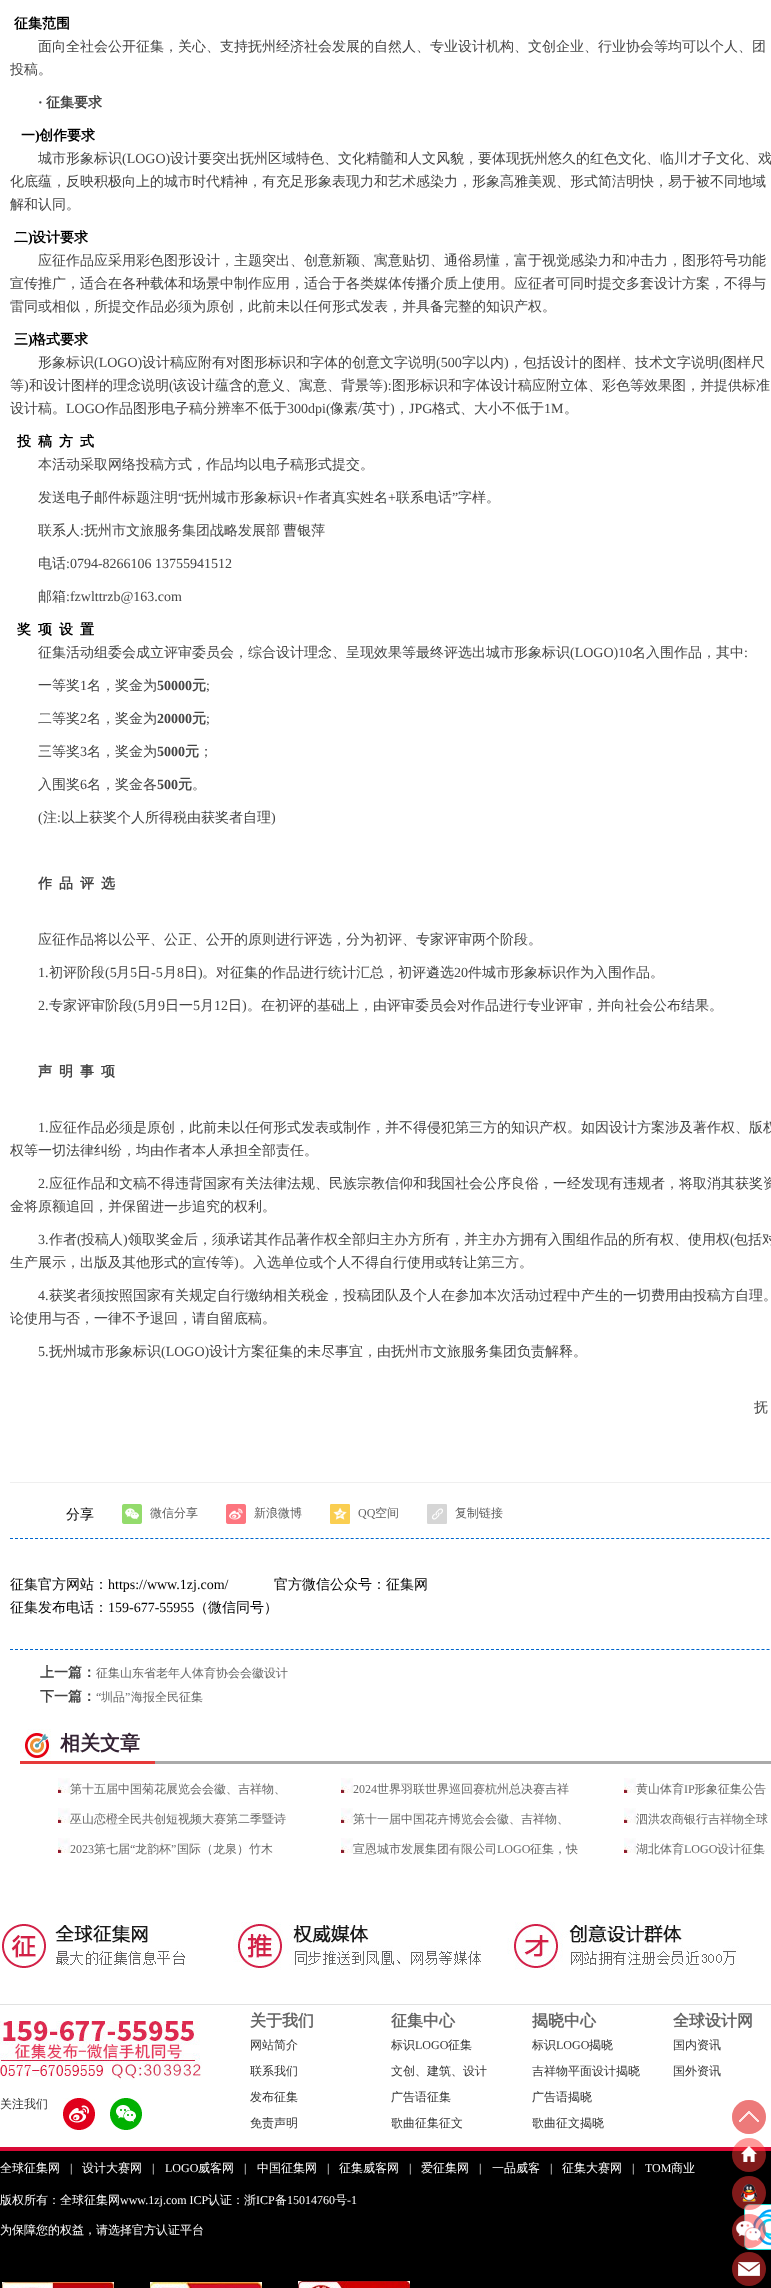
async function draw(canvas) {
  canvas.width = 771;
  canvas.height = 2288;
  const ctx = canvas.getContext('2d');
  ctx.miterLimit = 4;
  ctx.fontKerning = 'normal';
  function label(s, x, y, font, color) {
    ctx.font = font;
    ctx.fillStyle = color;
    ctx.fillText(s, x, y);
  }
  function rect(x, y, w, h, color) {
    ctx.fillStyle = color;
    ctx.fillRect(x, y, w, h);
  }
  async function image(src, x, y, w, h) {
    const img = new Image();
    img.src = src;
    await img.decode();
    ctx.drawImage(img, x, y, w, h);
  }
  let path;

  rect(0, 0, 771, 2288, '#fff');
  label('征集范围', 14, 28, 'bold 14px WenQuanYi Zen Hei', '#000');
  label('面向全社会公开征集，关心、支持抚州经济社会发展的自然人、专业设计机构、文创企业、行业协会等均可以个人、团', 38, 51, '500 14px WenQuanYi Zen Hei', '#444');
  label('投稿。', 10, 74, '500 14px WenQuanYi Zen Hei', '#444');
  label('·', 38, 107, 'bold 14px Liberation Serif', '#444');
  label('征集要求', 46, 107, 'bold 14px WenQuanYi Zen Hei', '#444');
  label('一', 21, 140, 'bold 14px WenQuanYi Zen Hei', '#000');
  label(')', 35, 140, 'bold 14px Liberation Serif', '#000');
  label('创作要求', 39, 140, 'bold 14px WenQuanYi Zen Hei', '#000');
  label('城市形象标识', 38, 163, '500 14px WenQuanYi Zen Hei', '#444');
  label('(LOGO)', 122, 163, '14px Liberation Serif', '#444');
  label('设计要突出抚州区域特色、文化精髓和人文风貌，要体现抚州悠久的红色文化、临川才子文化、戏', 170, 163, '500 14px WenQuanYi Zen Hei', '#444');
  label('化底蕴，反映积极向上的城市时代精神，有充足形象表现力和艺术感染力，形象高雅美观、形式简洁明快，易于被不同地域', 10, 186, '500 14px WenQuanYi Zen Hei', '#444');
  label('解和认同。', 10, 209, '500 14px WenQuanYi Zen Hei', '#444');
  label('二', 14, 242, 'bold 14px WenQuanYi Zen Hei', '#000');
  label(')', 28, 242, 'bold 14px Liberation Serif', '#000');
  label('设计要求', 32, 242, 'bold 14px WenQuanYi Zen Hei', '#000');
  label('应征作品应采用彩色图形设计，主题突出、创意新颖、寓意贴切、通俗易懂，富于视觉感染力和冲击力，图形符号功能', 38, 265, '500 14px WenQuanYi Zen Hei', '#444');
  label('宣传推广，适合在各种载体和场景中制作应用，适合于各类媒体传播介质上使用。应征者可同时提交多套设计方案，不得与', 10, 288, '500 14px WenQuanYi Zen Hei', '#444');
  label('雷同或相似，所提交作品必须为原创，此前未以任何形式发表，并具备完整的知识产权。', 10, 311, '500 14px WenQuanYi Zen Hei', '#444');
  label('三', 14, 344, 'bold 14px WenQuanYi Zen Hei', '#000');
  label(')', 28, 344, 'bold 14px Liberation Serif', '#000');
  label('格式要求', 32, 344, 'bold 14px WenQuanYi Zen Hei', '#000');
  label('形象标识', 38, 367, '500 14px WenQuanYi Zen Hei', '#444');
  label('(LOGO)', 94, 367, '14px Liberation Serif', '#444');
  label('设计稿应附有对图形标识和字体的创意文字说明', 142, 367, '500 14px WenQuanYi Zen Hei', '#444');
  label('(500', 436, 367, '14px Liberation Serif', '#444');
  label('字以内', 462, 367, '500 14px WenQuanYi Zen Hei', '#444');
  label(')', 504, 367, '14px Liberation Serif', '#444');
  label('，包括设计的图样、技术文字说明', 509, 367, '500 14px WenQuanYi Zen Hei', '#444');
  label('(', 719, 367, '14px Liberation Serif', '#444');
  label('图样尺', 723, 367, '500 14px WenQuanYi Zen Hei', '#444');
  label('等', 10, 390, '500 14px WenQuanYi Zen Hei', '#444');
  label(')', 24, 390, '14px Liberation Serif', '#444');
  label('和设计图样的理念说明', 29, 390, '500 14px WenQuanYi Zen Hei', '#444');
  label('(', 169, 390, '14px Liberation Serif', '#444');
  label('该设计蕴含的意义、寓意、背景等', 173, 390, '500 14px WenQuanYi Zen Hei', '#444');
  label('):', 383, 390, '14px Liberation Serif', '#444');
  label('图形标识和字体设计稿应附立体、彩色等效果图，并提供标准', 392, 390, '500 14px WenQuanYi Zen Hei', '#444');
  label('设计稿。', 10, 413, '500 14px WenQuanYi Zen Hei', '#444');
  label('LOGO', 66, 413, '14px Liberation Serif', '#444');
  label('作品图形电子稿分辨率不低于', 105, 413, '500 14px WenQuanYi Zen Hei', '#444');
  label('300dpi(', 287, 413, '14px Liberation Serif', '#444');
  label('像素', 330, 413, '500 14px WenQuanYi Zen Hei', '#444');
  label('/', 358, 413, '14px Liberation Serif', '#444');
  label('英寸', 362, 413, '500 14px WenQuanYi Zen Hei', '#444');
  label(')', 390, 413, '14px Liberation Serif', '#444');
  label('，', 395, 413, '500 14px WenQuanYi Zen Hei', '#444');
  label('JPG', 409, 413, '14px Liberation Serif', '#444');
  label('格式、大小不低于', 432, 413, '500 14px WenQuanYi Zen Hei', '#444');
  label('1M', 544, 413, '14px Liberation Serif', '#444');
  label('。', 564, 413, '500 14px WenQuanYi Zen Hei', '#444');
  label('投', 17, 446, 'bold 14px WenQuanYi Zen Hei', '#000');
  label('稿', 38, 446, 'bold 14px WenQuanYi Zen Hei', '#000');
  label('方', 59, 446, 'bold 14px WenQuanYi Zen Hei', '#000');
  label('式', 80, 446, 'bold 14px WenQuanYi Zen Hei', '#000');
  label('本活动采取网络投稿方式，作品均以电子稿形式提交。', 38, 469, '500 14px WenQuanYi Zen Hei', '#444');
  label('发送电子邮件标题注明', 38, 502, '500 14px WenQuanYi Zen Hei', '#444');
  label('“', 178, 502, '14px Liberation Serif', '#444');
  label('抚州城市形象标识', 184, 502, '500 14px WenQuanYi Zen Hei', '#444');
  label('+', 296, 502, '14px Liberation Serif', '#444');
  label('作者真实姓名', 304, 502, '500 14px WenQuanYi Zen Hei', '#444');
  label('+', 388, 502, '14px Liberation Serif', '#444');
  label('联系电话', 396, 502, '500 14px WenQuanYi Zen Hei', '#444');
  label('”', 452, 502, '14px Liberation Serif', '#444');
  label('字样。', 458, 502, '500 14px WenQuanYi Zen Hei', '#444');
  label('联系人', 38, 535, '500 14px WenQuanYi Zen Hei', '#444');
  label(':', 80, 535, '14px Liberation Serif', '#444');
  ctx.wordSpacing = '-1px';
  label('抚州市文旅服务集团战略发展部 曹银萍', 84, 535, '500 14px WenQuanYi Zen Hei', '#444');
  ctx.wordSpacing = '0px';
  label('电话', 38, 568, '500 14px WenQuanYi Zen Hei', '#444');
  label(':0794-8266106 13755941512', 66, 568, '14px Liberation Serif', '#444');
  label('邮箱', 38, 601, '500 14px WenQuanYi Zen Hei', '#444');
  label(':fzwlttrzb@163.com', 66, 601, '14px Liberation Serif', '#444');
  label('奖', 17, 634, 'bold 14px WenQuanYi Zen Hei', '#000');
  label('项', 38, 634, 'bold 14px WenQuanYi Zen Hei', '#000');
  label('设', 59, 634, 'bold 14px WenQuanYi Zen Hei', '#000');
  label('置', 80, 634, 'bold 14px WenQuanYi Zen Hei', '#000');
  label('征集活动组委会成立评审委员会，综合设计理念、呈现效果等最终评选出城市形象标识', 38, 657, '500 14px WenQuanYi Zen Hei', '#444');
  label('(LOGO)10', 570, 657, '14px Liberation Serif', '#444');
  label('名入围作品，其中', 632, 657, '500 14px WenQuanYi Zen Hei', '#444');
  label(':', 744, 657, '14px Liberation Serif', '#444');
  label('一等奖', 38, 690, '500 14px WenQuanYi Zen Hei', '#444');
  label('1', 80, 690, '14px Liberation Serif', '#444');
  label('名，奖金为', 87, 690, '500 14px WenQuanYi Zen Hei', '#444');
  label('50000', 157, 690, 'bold 14px Liberation Serif', '#444');
  label('元', 192, 690, 'bold 14px WenQuanYi Zen Hei', '#444');
  label(';', 206, 690, '14px Liberation Serif', '#444');
  label('二等奖', 38, 723, '500 14px WenQuanYi Zen Hei', '#444');
  label('2', 80, 723, '14px Liberation Serif', '#444');
  label('名，奖金为', 87, 723, '500 14px WenQuanYi Zen Hei', '#444');
  label('20000', 157, 723, 'bold 14px Liberation Serif', '#444');
  label('元', 192, 723, 'bold 14px WenQuanYi Zen Hei', '#444');
  label(';', 206, 723, '14px Liberation Serif', '#444');
  label('三等奖', 38, 756, '500 14px WenQuanYi Zen Hei', '#444');
  label('3', 80, 756, '14px Liberation Serif', '#444');
  label('名，奖金为', 87, 756, '500 14px WenQuanYi Zen Hei', '#444');
  label('5000', 157, 756, 'bold 14px Liberation Serif', '#444');
  label('元', 185, 756, 'bold 14px WenQuanYi Zen Hei', '#444');
  label('；', 199, 756, '500 14px WenQuanYi Zen Hei', '#444');
  label('入围奖', 38, 789, '500 14px WenQuanYi Zen Hei', '#444');
  label('6', 80, 789, '14px Liberation Serif', '#444');
  label('名，奖金各', 87, 789, '500 14px WenQuanYi Zen Hei', '#444');
  label('500', 157, 789, 'bold 14px Liberation Serif', '#444');
  label('元', 178, 789, 'bold 14px WenQuanYi Zen Hei', '#444');
  label('。', 192, 789, '500 14px WenQuanYi Zen Hei', '#444');
  label('(', 38, 822, '14px Liberation Serif', '#444');
  label('注', 43, 822, '500 14px WenQuanYi Zen Hei', '#444');
  label(':', 57, 822, '14px Liberation Serif', '#444');
  label('以上获奖个人所得税由获奖者自理', 61, 822, '500 14px WenQuanYi Zen Hei', '#444');
  label(')', 271, 822, '14px Liberation Serif', '#444');
  label('作', 38, 888, 'bold 14px WenQuanYi Zen Hei', '#444');
  label('品', 59, 888, 'bold 14px WenQuanYi Zen Hei', '#444');
  label('评', 80, 888, 'bold 14px WenQuanYi Zen Hei', '#444');
  label('选', 101, 888, 'bold 14px WenQuanYi Zen Hei', '#444');
  label('应征作品将以公平、公正、公开的原则进行评选，分为初评、专家评审两个阶段。', 38, 944, '500 14px WenQuanYi Zen Hei', '#444');
  label('1.', 38, 977, '14px Liberation Serif', '#444');
  label('初评阶段', 49, 977, '500 14px WenQuanYi Zen Hei', '#444');
  label('(5', 105, 977, '14px Liberation Serif', '#444');
  label('月', 116, 977, '500 14px WenQuanYi Zen Hei', '#444');
  label('5', 130, 977, '14px Liberation Serif', '#444');
  label('日', 137, 977, '500 14px WenQuanYi Zen Hei', '#444');
  label('-5', 151, 977, '14px Liberation Serif', '#444');
  label('月', 163, 977, '500 14px WenQuanYi Zen Hei', '#444');
  label('8', 177, 977, '14px Liberation Serif', '#444');
  label('日', 184, 977, '500 14px WenQuanYi Zen Hei', '#444');
  label(')', 198, 977, '14px Liberation Serif', '#444');
  label('。对征集的作品进行统计汇总，初评遴选', 202, 977, '500 14px WenQuanYi Zen Hei', '#444');
  label('20', 454, 977, '14px Liberation Serif', '#444');
  label('件城市形象标识作为入围作品。', 468, 977, '500 14px WenQuanYi Zen Hei', '#444');
  label('2.', 38, 1010, '14px Liberation Serif', '#444');
  label('专家评审阶段', 49, 1010, '500 14px WenQuanYi Zen Hei', '#444');
  label('(5', 133, 1010, '14px Liberation Serif', '#444');
  label('月', 144, 1010, '500 14px WenQuanYi Zen Hei', '#444');
  label('9', 158, 1010, '14px Liberation Serif', '#444');
  label('日一', 165, 1010, '500 14px WenQuanYi Zen Hei', '#444');
  label('5', 193, 1010, '14px Liberation Serif', '#444');
  label('月', 200, 1010, '500 14px WenQuanYi Zen Hei', '#444');
  label('12', 214, 1010, '14px Liberation Serif', '#444');
  label('日', 228, 1010, '500 14px WenQuanYi Zen Hei', '#444');
  label(')', 242, 1010, '14px Liberation Serif', '#444');
  label('。在初评的基础上，由评审委员会对作品进行专业评审，并向社会公布结果。', 247, 1010, '500 14px WenQuanYi Zen Hei', '#444');
  label('声', 38, 1076, 'bold 14px WenQuanYi Zen Hei', '#444');
  label('明', 59, 1076, 'bold 14px WenQuanYi Zen Hei', '#444');
  label('事', 80, 1076, 'bold 14px WenQuanYi Zen Hei', '#444');
  label('项', 101, 1076, 'bold 14px WenQuanYi Zen Hei', '#444');
  label('1.', 38, 1132, '14px Liberation Serif', '#444');
  label('应征作品必须是原创，此前未以任何形式发表或制作，并不得侵犯第三方的知识产权。如因设计方案涉及著作权、版权', 49, 1132, '500 14px WenQuanYi Zen Hei', '#444');
  label('权等一切法律纠纷，均由作者本人承担全部责任。', 10, 1155, '500 14px WenQuanYi Zen Hei', '#444');
  label('2.', 38, 1188, '14px Liberation Serif', '#444');
  label('应征作品和文稿不得违背国家有关法律法规、民族宗教信仰和我国社会公序良俗，一经发现有违规者，将取消其获奖资', 49, 1188, '500 14px WenQuanYi Zen Hei', '#444');
  label('金将原额追回，并保留进一步追究的权利。', 10, 1211, '500 14px WenQuanYi Zen Hei', '#444');
  label('3.', 38, 1244, '14px Liberation Serif', '#444');
  label('作者', 49, 1244, '500 14px WenQuanYi Zen Hei', '#444');
  label('(', 77, 1244, '14px Liberation Serif', '#444');
  label('投稿人', 81, 1244, '500 14px WenQuanYi Zen Hei', '#444');
  label(')', 123, 1244, '14px Liberation Serif', '#444');
  label('领取奖金后，须承诺其作品著作权全部归主办方所有，并主办方拥有入围组作品的所有权、使用权', 128, 1244, '500 14px WenQuanYi Zen Hei', '#444');
  label('(', 730, 1244, '14px Liberation Serif', '#444');
  label('包括对', 734, 1244, '500 14px WenQuanYi Zen Hei', '#444');
  label('生产展示，出版及其他形式的宣传等', 10, 1267, '500 14px WenQuanYi Zen Hei', '#444');
  label(')', 234, 1267, '14px Liberation Serif', '#444');
  label('。入选单位或个人不得自行使用或转让第三方。', 239, 1267, '500 14px WenQuanYi Zen Hei', '#444');
  label('4.', 38, 1300, '14px Liberation Serif', '#444');
  label('获奖者须按照国家有关规定自行缴纳相关税金，投稿团队及个人在参加本次活动过程中产生的一切费用由投稿方自理。', 49, 1300, '500 14px WenQuanYi Zen Hei', '#444');
  label('论使用与否，一律不予退回，请自留底稿。', 10, 1323, '500 14px WenQuanYi Zen Hei', '#444');
  label('5.', 38, 1356, '14px Liberation Serif', '#444');
  label('抚州城市形象标识', 49, 1356, '500 14px WenQuanYi Zen Hei', '#444');
  label('(LOGO)', 161, 1356, '14px Liberation Serif', '#444');
  label('设计方案征集的未尽事宜，由抚州市文旅服务集团负责解释。', 209, 1356, '500 14px WenQuanYi Zen Hei', '#444');
  label('抚', 754, 1412, '500 14px WenQuanYi Zen Hei', '#444');
  rect(10, 1482, 761, 1, '#efefef');
  label('分享', 66, 1519, '500 14px WenQuanYi Zen Hei', '#000');
  await image('assets/img1.png', 122, 1504, 20, 20);
  label('微信分享', 150, 1517, '500 12px WenQuanYi Zen Hei', '#606060');
  await image('assets/img2.png', 226, 1504, 20, 20);
  label('新浪微博', 254, 1517, '500 12px WenQuanYi Zen Hei', '#606060');
  await image('assets/img3.png', 330, 1504, 20, 20);
  label('QQ', 358, 1517, '12px Liberation Serif', '#606060');
  label('空间', 375, 1517, '500 12px WenQuanYi Zen Hei', '#606060');
  await image('assets/img4.png', 427, 1504, 20, 20);
  label('复制链接', 455, 1517, '500 12px WenQuanYi Zen Hei', '#606060');
  path = new Path2D('M10 1538.5H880');
  ctx.strokeStyle = '#06c';
  ctx.setLineDash([3, 2.01]);
  ctx.stroke(path);
  label('征集官方网站：', 10, 1589, '500 14px WenQuanYi Zen Hei', '#000');
  label('https://www.1zj.com/', 108, 1589, '14px Liberation Serif', '#000');
  label('官方微信公众号：征集网', 274, 1589, '500 14px WenQuanYi Zen Hei', '#000');
  label('征集发布电话：', 10, 1612, '500 14px WenQuanYi Zen Hei', '#000');
  label('159-677-55955', 108, 1612, '14px Liberation Serif', '#000');
  label('（微信同号）', 194, 1612, '500 14px WenQuanYi Zen Hei', '#000');
  path = new Path2D('M10 1649.5H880');
  ctx.stroke(path);
  label('上一篇：', 40, 1677, 'bold 14px WenQuanYi Zen Hei', '#444');
  label('征集山东省老年人体育协会会徽设计', 96, 1677, '500 12px WenQuanYi Zen Hei', '#666');
  label('下一篇：', 40, 1701, 'bold 14px WenQuanYi Zen Hei', '#444');
  label('“', 96, 1701, '12px Liberation Serif', '#666');
  label('圳品', 101, 1701, '500 12px WenQuanYi Zen Hei', '#666');
  label('”', 125, 1701, '12px Liberation Serif', '#666');
  label('海报全民征集', 131, 1701, '500 12px WenQuanYi Zen Hei', '#666');
  rect(155, 1761, 616, 3, '#aaa');
  await image('assets/img5.png', 20, 1729, 31, 30);
  rect(20, 1761, 135, 3, '#e63a3a');
  label('相关文章', 60, 1750, 'bold 20px WenQuanYi Zen Hei', '#323');
  await image('assets/img6.png', 58, 1778, 12, 15);
  label('第十五届中国菊花展览会会徽、吉祥物、', 70, 1793, '500 12px WenQuanYi Zen Hei', '#666');
  await image('assets/img6.png', 341, 1778, 12, 15);
  label('2024', 353, 1793, '12px Liberation Serif', '#666');
  label('世界羽联世界巡回赛杭州总决赛吉祥', 377, 1793, '500 12px WenQuanYi Zen Hei', '#666');
  await image('assets/img6.png', 624, 1778, 12, 15);
  label('黄山体育', 636, 1793, '500 12px WenQuanYi Zen Hei', '#666');
  label('IP', 684, 1793, '12px Liberation Serif', '#666');
  label('形象征集公告', 694, 1793, '500 12px WenQuanYi Zen Hei', '#666');
  await image('assets/img6.png', 58, 1808, 12, 15);
  label('巫山恋橙全民共创短视频大赛第二季暨诗', 70, 1823, '500 12px WenQuanYi Zen Hei', '#666');
  await image('assets/img6.png', 341, 1808, 12, 15);
  label('第十一届中国花卉博览会会徽、吉祥物、', 353, 1823, '500 12px WenQuanYi Zen Hei', '#666');
  await image('assets/img6.png', 624, 1808, 12, 15);
  label('泗洪农商银行吉祥物全球', 636, 1823, '500 12px WenQuanYi Zen Hei', '#666');
  await image('assets/img6.png', 58, 1838, 12, 15);
  label('2023', 70, 1853, '12px Liberation Serif', '#666');
  label('第七届', 94, 1853, '500 12px WenQuanYi Zen Hei', '#666');
  label('“', 130, 1853, '12px Liberation Serif', '#666');
  label('龙韵杯', 135, 1853, '500 12px WenQuanYi Zen Hei', '#666');
  label('”', 171, 1853, '12px Liberation Serif', '#666');
  label('国际（龙泉）竹木', 177, 1853, '500 12px WenQuanYi Zen Hei', '#666');
  await image('assets/img6.png', 341, 1838, 12, 15);
  label('宣恩城市发展集团有限公司', 353, 1853, '500 12px WenQuanYi Zen Hei', '#666');
  label('LOGO', 497, 1853, '12px Liberation Serif', '#666');
  label('征集，快', 530, 1853, '500 12px WenQuanYi Zen Hei', '#666');
  await image('assets/img6.png', 624, 1838, 12, 15);
  label('湖北体育', 636, 1853, '500 12px WenQuanYi Zen Hei', '#666');
  label('LOGO', 684, 1853, '12px Liberation Serif', '#666');
  label('设计征集', 717, 1853, '500 12px WenQuanYi Zen Hei', '#666');
  rect(0, 2004, 771, 1, '#e1e1e1');
  await image('assets/img7.png', 2, 1924, 183, 44);
  await image('assets/img8.png', 233, 1922, 248, 48);
  await image('assets/img9.png', 507, 1922, 232, 48);
  await image('assets/img10.png', 0, 2021, 202, 59);
  label('关注我们', 0, 2108, '500 12px WenQuanYi Zen Hei', '#333');
  await image('assets/img11.png', 63, 2098, 32, 32);
  await image('assets/img12.png', 110, 2098, 32, 32);
  label('关于我们', 250, 2026, 'bold 16px WenQuanYi Zen Hei', '#666');
  label('网站简介', 250, 2049, '500 12px WenQuanYi Zen Hei', '#333');
  label('联系我们', 250, 2075, '500 12px WenQuanYi Zen Hei', '#333');
  label('发布征集', 250, 2101, '500 12px WenQuanYi Zen Hei', '#333');
  label('免责声明', 250, 2127, '500 12px WenQuanYi Zen Hei', '#333');
  label('征集中心', 391, 2026, 'bold 16px WenQuanYi Zen Hei', '#666');
  label('标识', 391, 2049, '500 12px WenQuanYi Zen Hei', '#333');
  label('LOGO', 415, 2049, '12px Liberation Serif', '#333');
  label('征集', 448, 2049, '500 12px WenQuanYi Zen Hei', '#333');
  label('文创、建筑、设计', 391, 2075, '500 12px WenQuanYi Zen Hei', '#333');
  label('广告语征集', 391, 2101, '500 12px WenQuanYi Zen Hei', '#333');
  label('歌曲征集征文', 391, 2127, '500 12px WenQuanYi Zen Hei', '#333');
  label('揭晓中心', 532, 2026, 'bold 16px WenQuanYi Zen Hei', '#666');
  label('标识', 532, 2049, '500 12px WenQuanYi Zen Hei', '#333');
  label('LOGO', 556, 2049, '12px Liberation Serif', '#333');
  label('揭晓', 589, 2049, '500 12px WenQuanYi Zen Hei', '#333');
  label('吉祥物平面设计揭晓', 532, 2075, '500 12px WenQuanYi Zen Hei', '#333');
  label('广告语揭晓', 532, 2101, '500 12px WenQuanYi Zen Hei', '#333');
  label('歌曲征文揭晓', 532, 2127, '500 12px WenQuanYi Zen Hei', '#333');
  label('全球设计网', 673, 2026, 'bold 16px WenQuanYi Zen Hei', '#666');
  label('国内资讯', 673, 2049, '500 12px WenQuanYi Zen Hei', '#333');
  label('国外资讯', 673, 2075, '500 12px WenQuanYi Zen Hei', '#333');
  await image('assets/img13.png', 0, 2147, 771, 141);
  label('全球征集网', 0, 2172, '500 12px WenQuanYi Zen Hei', '#fff');
  label('|', 70, 2172, '12px Liberation Serif', '#fff');
  label('设计大赛网', 82, 2172, '500 12px WenQuanYi Zen Hei', '#fff');
  label('|', 152, 2172, '12px Liberation Serif', '#fff');
  label('LOGO', 165, 2172, '12px Liberation Serif', '#fff');
  label('威客网', 198, 2172, '500 12px WenQuanYi Zen Hei', '#fff');
  label('|', 244, 2172, '12px Liberation Serif', '#fff');
  label('中国征集网', 257, 2172, '500 12px WenQuanYi Zen Hei', '#fff');
  label('|', 327, 2172, '12px Liberation Serif', '#fff');
  label('征集威客网', 339, 2172, '500 12px WenQuanYi Zen Hei', '#fff');
  label('|', 409, 2172, '12px Liberation Serif', '#fff');
  label('爱征集网', 421, 2172, '500 12px WenQuanYi Zen Hei', '#fff');
  label('|', 479, 2172, '12px Liberation Serif', '#fff');
  label('一品威客', 492, 2172, '500 12px WenQuanYi Zen Hei', '#fff');
  label('|', 550, 2172, '12px Liberation Serif', '#fff');
  label('征集大赛网', 562, 2172, '500 12px WenQuanYi Zen Hei', '#fff');
  label('|', 632, 2172, '12px Liberation Serif', '#fff');
  label('TOM', 645, 2172, '12px Liberation Serif', '#fff');
  label('商业', 671, 2172, '500 12px WenQuanYi Zen Hei', '#fff');
  label('版权所有：全球征集网', 0, 2204, '500 12px WenQuanYi Zen Hei', '#fff');
  label('www.1zj.com ICP', 120, 2204, '12px Liberation Serif', '#fff');
  label('认证：浙', 208, 2204, '500 12px WenQuanYi Zen Hei', '#fff');
  label('ICP', 256, 2204, '12px Liberation Serif', '#fff');
  label('备', 275, 2204, '500 12px WenQuanYi Zen Hei', '#fff');
  label('15014760', 287, 2204, '12px Liberation Serif', '#fff');
  label('号', 335, 2204, '500 12px WenQuanYi Zen Hei', '#fff');
  label('-1', 347, 2204, '12px Liberation Serif', '#fff');
  label('为保障您的权益，请选择官方认证平台', 0, 2234, '500 12px WenQuanYi Zen Hei', '#fff');
  await image('assets/img14.png', 744, 2204, 27, 46);
  await image('assets/img15.png', 2, 2281, 408, 7);
  ctx.fillStyle = '#ffc0c0';
  ctx.beginPath();
  ctx.arc(749, 2117, 17, 0, 2 * Math.PI);
  ctx.fill();
  await image('assets/img16.png', 732, 2100, 34, 34);
  ctx.fillStyle = '#ff333380';
  ctx.beginPath();
  ctx.arc(749, 2155, 17, 0, 2 * Math.PI);
  ctx.fill();
  await image('assets/img17.png', 741, 2146, 16, 16);
  ctx.beginPath();
  ctx.arc(749, 2193, 17, 0, 2 * Math.PI);
  ctx.fill();
  await image('assets/img18.png', 741, 2184, 16, 18);
  ctx.beginPath();
  ctx.arc(749, 2231, 17, 0, 2 * Math.PI);
  ctx.fill();
  await image('assets/img19.png', 736, 2221, 25, 20);
  ctx.fillStyle = '#801a1a';
  ctx.beginPath();
  ctx.arc(749, 2269, 17, 0, 2 * Math.PI);
  ctx.fill();
  await image('assets/img20.png', 738, 2262, 22, 14);
}

draw(document.querySelector('canvas'));
